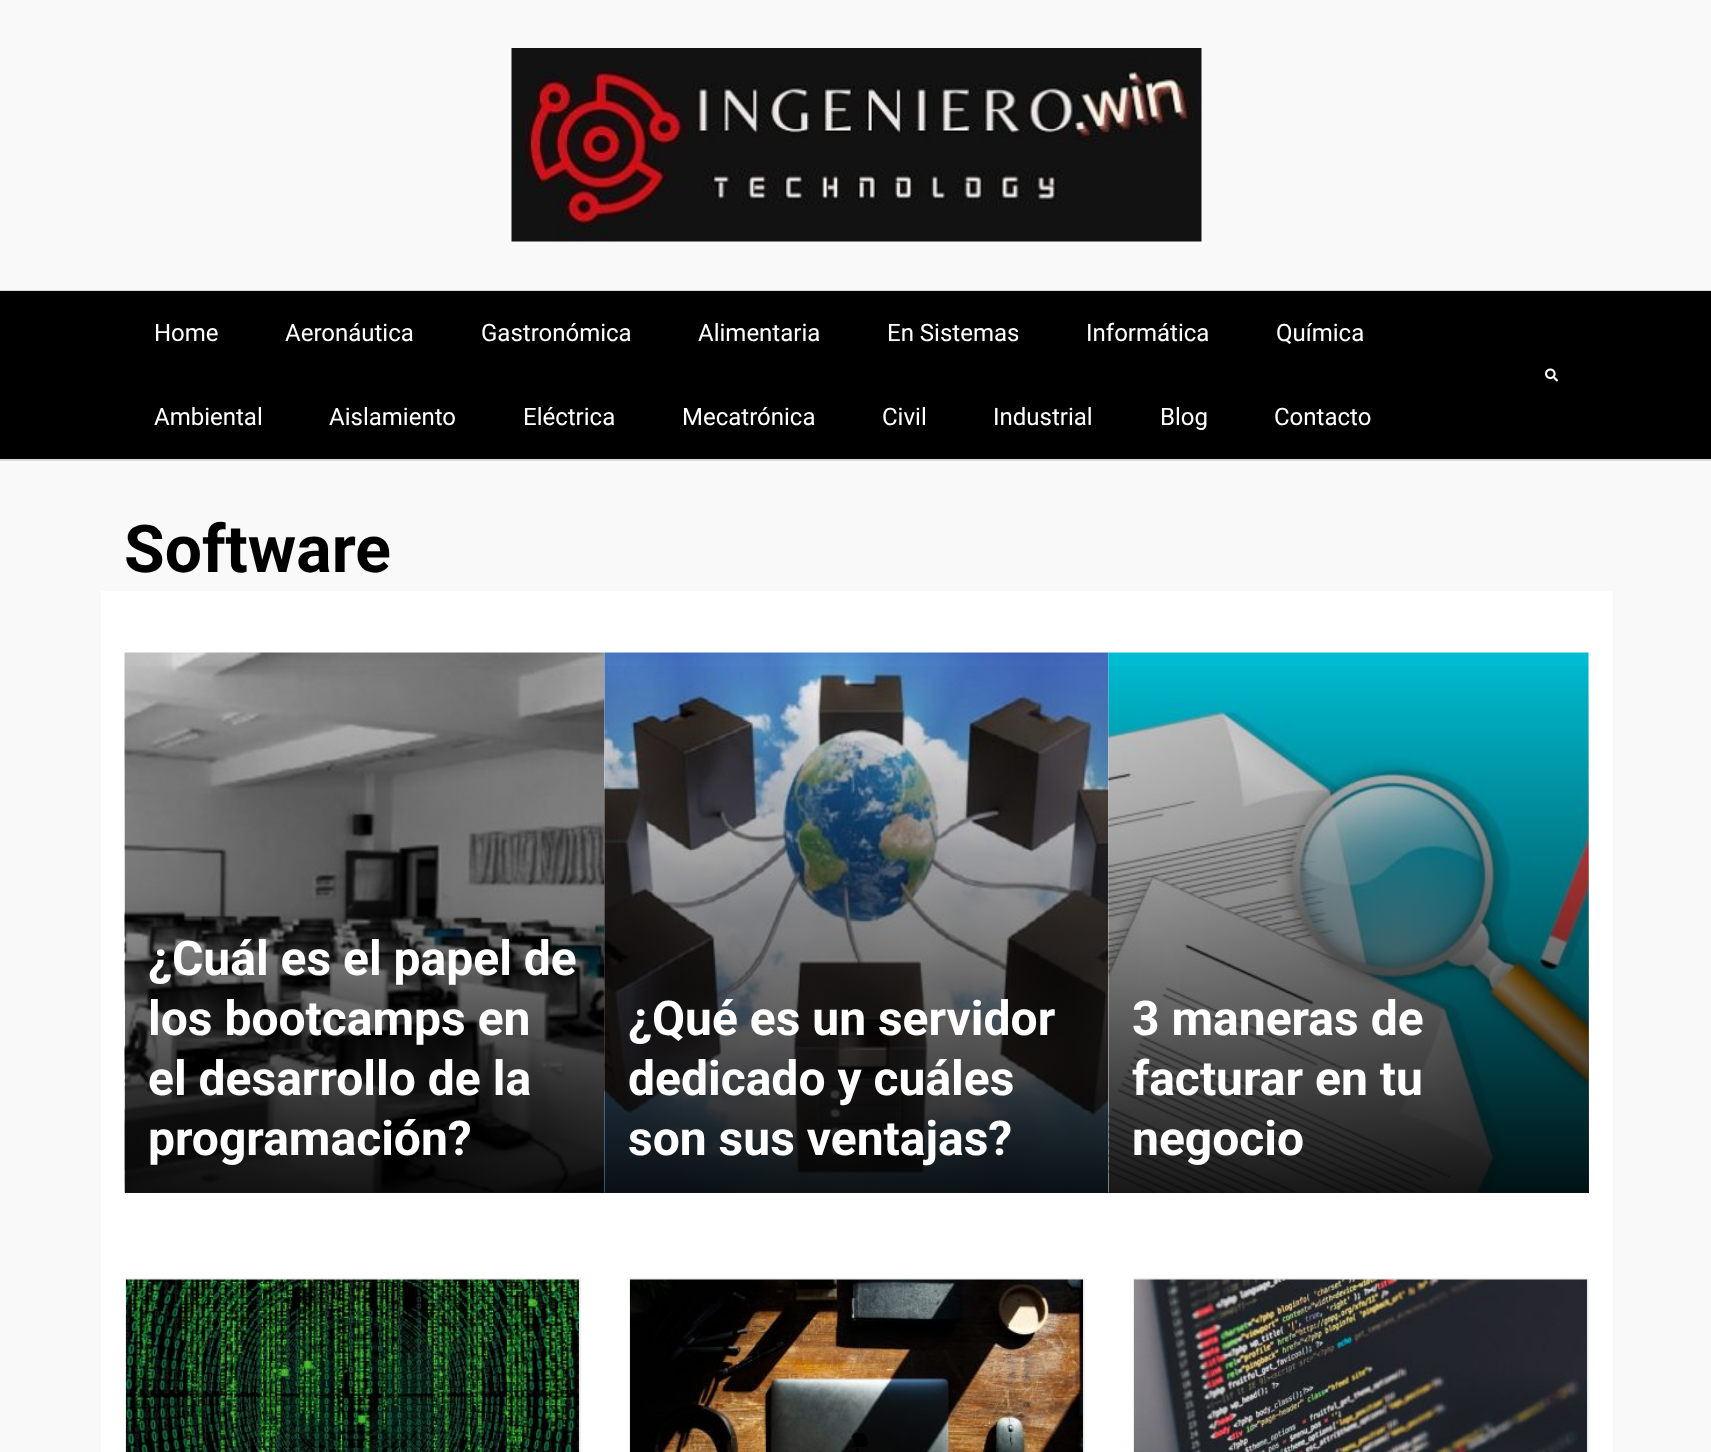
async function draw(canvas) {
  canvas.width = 1711;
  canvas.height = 1452;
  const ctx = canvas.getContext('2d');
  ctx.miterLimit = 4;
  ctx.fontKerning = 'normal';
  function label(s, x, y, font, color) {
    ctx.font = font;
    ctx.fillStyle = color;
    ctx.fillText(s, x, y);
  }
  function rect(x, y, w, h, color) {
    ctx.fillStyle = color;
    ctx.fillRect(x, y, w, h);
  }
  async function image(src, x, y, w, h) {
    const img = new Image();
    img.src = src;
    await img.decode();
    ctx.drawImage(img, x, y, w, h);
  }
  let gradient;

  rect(0, 0, 1711, 1452, '#f9f9f9');
  rect(0, 290, 1711, 1, '#dbdbdb');
  await image('assets/img1.png', 511, 48, 691, 194);
  rect(0, 291, 1711, 168, '#000');
  rect(0, 459, 1711, 2, '#dbdbdb');
  label('Home', 154, 341, '24px Roboto', '#fff');
  label('Aeronáutica', 285, 341, '24px Roboto', '#fff');
  label('Gastronómica', 481, 341, '24px Roboto', '#fff');
  label('Alimentaria', 698, 341, '24px Roboto', '#fff');
  label('En Sistemas', 887, 341, '24px Roboto', '#fff');
  label('Informática', 1086, 341, '24px Roboto', '#fff');
  label('Química', 1276, 341, '24px Roboto', '#fff');
  label('Ambiental', 154, 425, '24px Roboto', '#fff');
  label('Aislamiento', 329, 425, '24px Roboto', '#fff');
  label('Eléctrica', 523, 425, '24px Roboto', '#fff');
  label('Mecatrónica', 682, 425, '24px Roboto', '#fff');
  label('Civil', 882, 425, '24px Roboto', '#fff');
  label('Industrial', 993, 425, '24px Roboto', '#fff');
  label('Blog', 1160, 425, '24px Roboto', '#fff');
  label('Contacto', 1274, 425, '24px Roboto', '#fff');
  await image('assets/img2.png', 1545, 368, 13, 14);
  label('Software', 124, 572, 'bold 66px Roboto', '#000');
  rect(101, 591, 1512, 861, '#fff');
  await image('assets/img3.png', 124, 652, 481, 541);
  gradient = ctx.createLinearGradient(364, 653, 365, 1193);
  gradient.addColorStop(0, '#00000000');
  gradient.addColorStop(1, '#000000e6');
  ctx.fillStyle = gradient;
  ctx.fillRect(125, 666, 480, 527);
  label('¿Cuál es el papel de', 148, 975, 'bold 48px Roboto', '#fff');
  label('los bootcamps en', 148, 1035, 'bold 48px Roboto', '#fff');
  label('el desarrollo de la', 148, 1095, 'bold 48px Roboto', '#fff');
  label('programación?', 148, 1155, 'bold 48px Roboto', '#fff');
  await image('assets/img4.png', 604, 652, 505, 541);
  gradient = ctx.createLinearGradient(857, 653, 857, 1193);
  gradient.addColorStop(0, '#00000000');
  gradient.addColorStop(1, '#000000e6');
  ctx.fillStyle = gradient;
  ctx.fillRect(605, 666, 504, 527);
  label('¿Qué es un servidor', 628, 1035, 'bold 48px Roboto', '#fff');
  label('dedicado y cuáles', 628, 1095, 'bold 48px Roboto', '#fff');
  label('son sus ventajas?', 628, 1155, 'bold 48px Roboto', '#fff');
  await image('assets/img5.png', 1108, 652, 481, 541);
  gradient = ctx.createLinearGradient(1349, 653, 1349, 1193);
  gradient.addColorStop(0, '#00000000');
  gradient.addColorStop(1, '#000000e6');
  ctx.fillStyle = gradient;
  ctx.fillRect(1109, 666, 480, 527);
  label('3 maneras de', 1132, 1035, 'bold 48px Roboto', '#fff');
  label('facturar en tu', 1132, 1095, 'bold 48px Roboto', '#fff');
  label('negocio', 1132, 1155, 'bold 48px Roboto', '#fff');
  ctx.strokeStyle = '#eee';
  ctx.lineWidth = 2;
  ctx.strokeRect(126, 1279, 454, 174);
  await image('assets/img6.png', 126, 1279, 453, 173);
  ctx.strokeRect(630, 1279, 454, 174);
  await image('assets/img7.png', 630, 1279, 453, 173);
  ctx.strokeRect(1134, 1279, 454, 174);
  await image('assets/img8.png', 1134, 1279, 453, 173);
}

draw(document.querySelector('canvas'));
